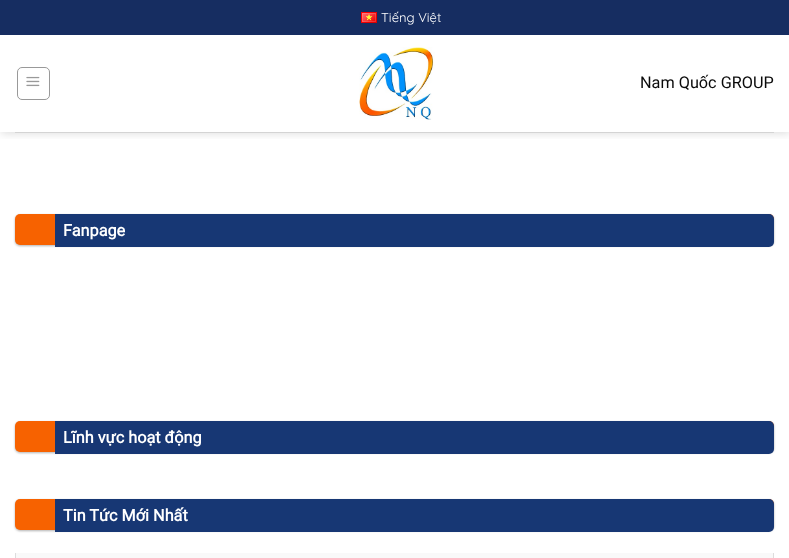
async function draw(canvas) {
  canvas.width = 789;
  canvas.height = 558;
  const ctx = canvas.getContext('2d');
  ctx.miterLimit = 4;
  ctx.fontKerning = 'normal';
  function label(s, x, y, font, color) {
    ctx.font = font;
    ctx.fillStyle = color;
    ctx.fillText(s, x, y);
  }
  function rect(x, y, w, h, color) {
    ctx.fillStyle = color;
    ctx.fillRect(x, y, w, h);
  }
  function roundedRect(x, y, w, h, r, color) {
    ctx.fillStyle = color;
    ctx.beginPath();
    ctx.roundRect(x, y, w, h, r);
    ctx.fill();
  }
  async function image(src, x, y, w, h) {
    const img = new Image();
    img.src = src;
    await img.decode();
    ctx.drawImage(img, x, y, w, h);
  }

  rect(0, 0, 789, 558, '#fff');
  ctx.save();
  ctx.beginPath();
  ctx.rect(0, 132, 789, 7);
  ctx.clip();
  ctx.fillStyle = '#00000026';
  ctx.filter = 'blur(5px)';
  ctx.beginPath();
  ctx.rect(1, 1, 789, 132);
  ctx.fill();
  ctx.filter = 'none';
  ctx.restore();
  rect(0, 0, 789, 35, '#162d61');
  await image('assets/img1.png', 361, 12, 16, 11);
  label('Tiếng Việt', 381, 22, '13px Quicksand', '#fff');
  ctx.beginPath();
  ctx.roundRect(17.5, 67.5, 32, 32, 4.5);
  ctx.strokeStyle = '#999';
  ctx.stroke();
  await image('assets/img2.png', 26, 76, 14, 11);
  await image('assets/img3.png', 359, 47, 76, 73);
  label('Nam Quốc GROUP', 640, 88, '16.25px Roboto', '#0a0a0a');
  rect(15, 132, 759, 1, '#d4d4d4');
  ctx.fillStyle = '#0000004d';
  ctx.filter = 'blur(1px)';
  ctx.beginPath();
  ctx.roundRect(15, 215, 759, 31, 5);
  ctx.fill();
  ctx.filter = 'none';
  roundedRect(15, 214, 759, 31, 5, '#f76200');
  ctx.fillStyle = '#173774';
  ctx.beginPath();
  ctx.roundRect(55, 214, 719, 33, [0, 5, 5, 0]);
  ctx.fill();
  label('Fanpage', 63, 236, 'bold 16.25px Roboto', '#fff');
  ctx.fillStyle = '#0000004d';
  ctx.filter = 'blur(1px)';
  ctx.beginPath();
  ctx.roundRect(15, 422, 759, 31, 5);
  ctx.fill();
  ctx.filter = 'none';
  roundedRect(15, 421, 759, 31, 5, '#f76200');
  ctx.fillStyle = '#173774';
  ctx.beginPath();
  ctx.roundRect(55, 421, 719, 33, [0, 5, 5, 0]);
  ctx.fill();
  label('Lĩnh vực hoạt động', 63, 443, 'bold 16.25px Roboto', '#fff');
  ctx.fillStyle = '#0000004d';
  ctx.filter = 'blur(1px)';
  ctx.beginPath();
  ctx.roundRect(15, 500, 759, 31, 5);
  ctx.fill();
  ctx.filter = 'none';
  roundedRect(15, 499, 759, 31, 5, '#f76200');
  ctx.fillStyle = '#173774';
  ctx.beginPath();
  ctx.roundRect(55, 499, 719, 33, [0, 5, 5, 0]);
  ctx.fill();
  label('Tin Tức Mới Nhất', 63, 521, 'bold 16.25px Roboto', '#fff');
  rect(15, 553, 759, 5, '#f9f9f9');
  rect(773, 553, 1, 5, '#ddd');
  rect(15, 553, 1, 5, '#ddd');
}

draw(document.querySelector('canvas'));
